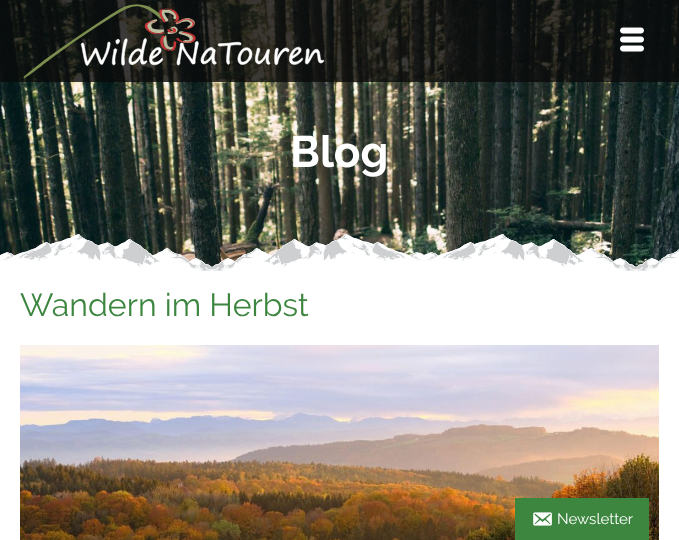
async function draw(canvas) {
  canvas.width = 679;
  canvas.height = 540;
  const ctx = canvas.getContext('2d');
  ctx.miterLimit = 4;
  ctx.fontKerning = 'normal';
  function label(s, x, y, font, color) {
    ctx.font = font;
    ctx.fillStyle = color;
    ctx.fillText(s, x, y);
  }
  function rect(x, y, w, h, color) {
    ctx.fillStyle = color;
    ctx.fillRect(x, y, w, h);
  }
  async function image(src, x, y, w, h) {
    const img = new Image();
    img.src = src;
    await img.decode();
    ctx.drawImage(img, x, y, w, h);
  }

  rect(0, 0, 679, 540, '#fff');
  await image('assets/img1.png', 0, 0, 679, 267);
  rect(0, 0, 679, 82, '#0a0a0acc');
  await image('assets/img2.png', 23, 4, 302, 75);
  await image('assets/img3.png', 620, 27, 24, 25);
  label('Blog', 290, 167, 'bold 44px Raleway', '#fff');
  ctx.fillStyle = '#323232';
  ctx.filter = 'blur(2.5px)';
  ctx.beginPath();
  ctx.rect(0, 268, 679, 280);
  ctx.fill();
  ctx.filter = 'none';
  rect(0, 271, 679, 269, '#fff');
  await image('assets/img4.png', 0, 234, 679, 37);
  label('Wandern im Herbst', 20, 316, '32px Raleway', '#3d8640');
  await image('assets/img5.png', 20, 345, 639, 195);
  rect(515, 498, 134, 42, '#3d8640');
  await image('assets/img6.png', 533, 512, 19, 14);
  label('Newsletter', 557, 524, '15px Raleway', '#fff');
}

draw(document.querySelector('canvas'));
